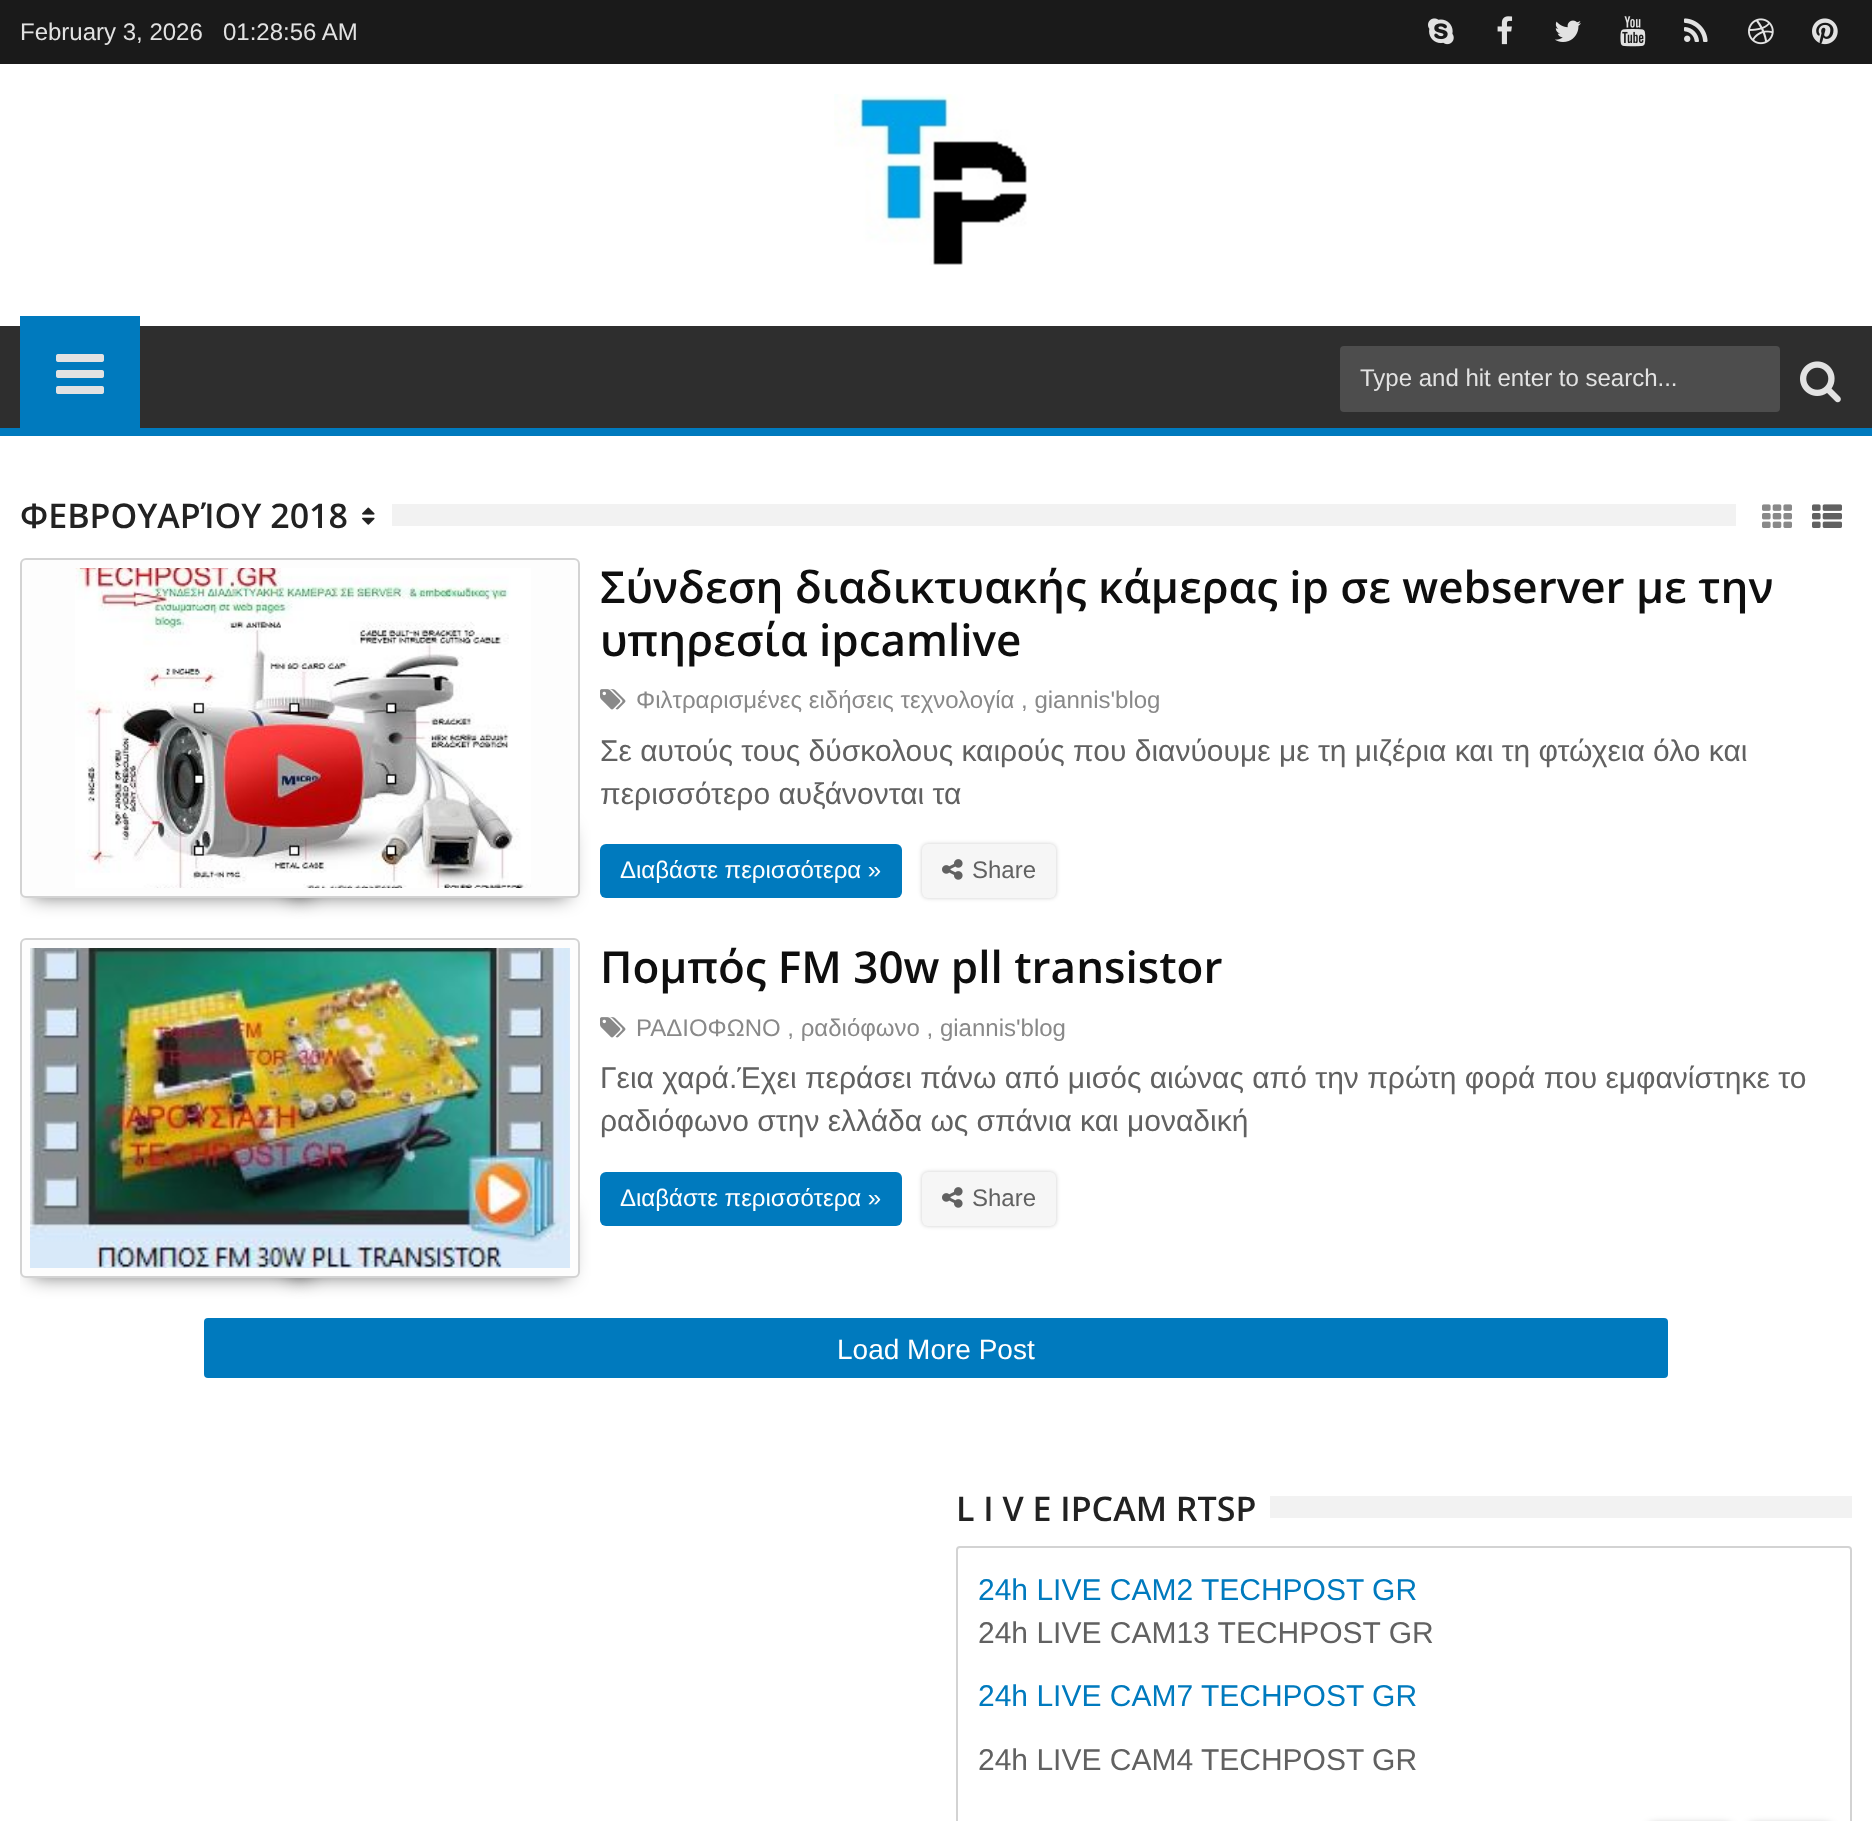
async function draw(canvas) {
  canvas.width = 1872;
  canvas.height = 1821;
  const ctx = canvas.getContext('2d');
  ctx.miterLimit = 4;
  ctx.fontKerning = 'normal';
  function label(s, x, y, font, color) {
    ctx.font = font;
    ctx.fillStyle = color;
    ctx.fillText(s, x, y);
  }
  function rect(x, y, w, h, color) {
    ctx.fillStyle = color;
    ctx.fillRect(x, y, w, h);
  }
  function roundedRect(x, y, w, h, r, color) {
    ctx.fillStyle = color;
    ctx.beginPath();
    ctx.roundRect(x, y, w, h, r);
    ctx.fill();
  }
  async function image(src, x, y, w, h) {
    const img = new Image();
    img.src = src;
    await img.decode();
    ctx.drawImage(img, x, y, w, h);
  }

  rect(0, 0, 1872, 1821, '#fff');
  rect(0, 0, 1872, 64, '#1a1a1a');
  label('February 3, 2026', 20, 40, '24px Liberation Sans', '#e2e2e2');
  label('01:28:56 AM', 223, 40, '24px Liberation Sans', '#e2e2e2');
  await image('assets/img1.png', 1428, 18, 26, 27);
  await image('assets/img2.png', 1497, 16, 16, 29);
  await image('assets/img3.png', 1555, 20, 26, 22);
  await image('assets/img4.png', 1620, 16, 26, 31);
  await image('assets/img5.png', 1684, 18, 24, 24);
  await image('assets/img6.png', 1748, 18, 26, 27);
  await image('assets/img7.png', 1812, 18, 26, 27);
  await image('assets/img8.png', 834, 94, 193, 171);
  rect(0, 326, 1872, 102, '#2e2e2e');
  rect(0, 428, 1872, 8, '#007abe');
  rect(20, 316, 120, 112, '#007abe');
  await image('assets/img9.png', 56, 354, 48, 40);
  roundedRect(1340, 346, 440, 66, 4, '#4d4d4d');
  label('Type and hit enter to search...', 1360, 386, '24px Liberation Sans', '#e2e2e2');
  await image('assets/img10.png', 1800, 361, 41, 42);
  label('ΦΕΒΡΟΥΑΡΊΟΥ 2018', 20, 528, '600 34px Open Sans', '#222');
  await image('assets/img11.png', 362, 507, 13, 18);
  rect(392, 504, 1344, 22, '#f2f2f2');
  await image('assets/img12.png', 1762, 504, 30, 24);
  await image('assets/img13.png', 1812, 504, 30, 24);
  ctx.save();
  ctx.beginPath();
  ctx.rect(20, 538, 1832, 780);
  ctx.clip();
  ctx.fillStyle = '#00000099';
  ctx.filter = 'blur(10px)';
  ctx.beginPath();
  ctx.rect(32, 830, 278, 66);
  ctx.fill();
  ctx.filter = 'none';
  ctx.restore();
  ctx.fillStyle = '#00000099';
  ctx.filter = 'blur(10px)';
  ctx.beginPath();
  ctx.rect(290, 830, 278, 66);
  ctx.fill();
  ctx.filter = 'none';
  ctx.fillStyle = '#fdfdfd';
  ctx.beginPath();
  ctx.roundRect(21, 559, 558, 338, 5);
  ctx.fill();
  ctx.strokeStyle = '#d3d3d3';
  ctx.lineWidth = 2;
  ctx.stroke();
  await image('assets/img14.png', 75, 568, 456, 320);
  label('Σύνδεση διαδικτυακής κάμερας ip σε webserver με την', 600, 603, '600 44px Open Sans', '#0e0e0e');
  label('υπηρεσία ipcamlive', 600, 656, '600 44px Open Sans', '#0e0e0e');
  await image('assets/img15.png', 600, 689, 26, 21);
  label('Φιλτραρισμένες ειδήσεις τεχνολογία , giannis\'blog', 636, 708, '24px Liberation Sans', '#898989');
  label('Σε αυτούς τους δύσκολους καιρούς που διανύουμε με τη μιζέρια και τη φτώχεια όλο και', 600, 761, '30px Liberation Sans', '#616161');
  label('περισσότερο αυξάνονται τα', 600, 804, '30px Liberation Sans', '#616161');
  roundedRect(600, 844, 302, 54, 6, '#007abe');
  label('Διαβάστε περισσότερα »', 620, 878, '24px Liberation Sans', '#fff');
  ctx.fillStyle = '#00000033';
  ctx.filter = 'blur(2px)';
  ctx.beginPath();
  ctx.roundRect(922, 844, 134, 54, 6);
  ctx.fill();
  ctx.filter = 'none';
  roundedRect(922, 844, 134, 54, 6, '#f6f6f6');
  await image('assets/img16.png', 942, 859, 21, 21);
  label('Share', 972, 878, '24px Liberation Sans', '#616161');
  ctx.save();
  ctx.beginPath();
  ctx.rect(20, 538, 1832, 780);
  ctx.clip();
  ctx.fillStyle = '#00000099';
  ctx.filter = 'blur(10px)';
  ctx.beginPath();
  ctx.rect(32, 1210, 278, 66);
  ctx.fill();
  ctx.filter = 'none';
  ctx.restore();
  ctx.fillStyle = '#00000099';
  ctx.filter = 'blur(10px)';
  ctx.beginPath();
  ctx.rect(290, 1210, 278, 66);
  ctx.fill();
  ctx.filter = 'none';
  ctx.fillStyle = '#fdfdfd';
  ctx.beginPath();
  ctx.roundRect(21, 939, 558, 338, 5);
  ctx.fill();
  ctx.stroke();
  await image('assets/img17.png', 30, 948, 540, 320);
  label('Πομπός FM 30w pll transistor', 600, 983, '600 44px Open Sans', '#0e0e0e');
  await image('assets/img15.png', 600, 1017, 26, 21);
  label('ΡΑΔΙΟΦΩΝΟ , ραδιόφωνο , giannis\'blog', 636, 1036, '24px Liberation Sans', '#898989');
  label('Γεια χαρά.Έχει περάσει πάνω από μισός αιώνας από την πρώτη φορά που εμφανίστηκε το', 600, 1088, '30px Liberation Sans', '#616161');
  label('ραδιόφωνο στην ελλάδα ως σπάνια και μοναδική', 600, 1131, '30px Liberation Sans', '#616161');
  roundedRect(600, 1172, 302, 54, 6, '#007abe');
  label('Διαβάστε περισσότερα »', 620, 1206, '24px Liberation Sans', '#fff');
  ctx.fillStyle = '#00000033';
  ctx.filter = 'blur(2px)';
  ctx.beginPath();
  ctx.roundRect(922, 1172, 134, 54, 6);
  ctx.fill();
  ctx.filter = 'none';
  roundedRect(922, 1172, 134, 54, 6, '#f6f6f6');
  await image('assets/img16.png', 942, 1187, 21, 21);
  label('Share', 972, 1206, '24px Liberation Sans', '#616161');
  roundedRect(204, 1318, 1464, 60, 4, '#007abe');
  label('Load More Post', 837, 1359, '28px Liberation Sans', '#fff');
  label('L I V E IPCAM RTSP', 956, 1521, '600 34px Open Sans', '#222');
  rect(1270, 1496, 582, 22, '#f2f2f2');
  ctx.beginPath();
  ctx.roundRect(957, 1547, 894, 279, 3);
  ctx.stroke();
  label('24h LIVE CAM2 TECHPOST GR', 978, 1600, '30px Liberation Sans', '#007abe');
  label('24h LIVE CAM13 TECHPOST GR', 978, 1643, '30px Liberation Sans', '#616161');
  label('24h LIVE CAM7 TECHPOST GR', 978, 1706, '30px Liberation Sans', '#007abe');
  label('24h LIVE CAM4 TECHPOST GR', 978, 1770, '30px Liberation Sans', '#616161');
  ctx.fillStyle = '#00000080';
  ctx.filter = 'blur(5px)';
  ctx.beginPath();
  ctx.roundRect(1648, 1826, 84, 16, 6);
  ctx.fill();
  ctx.filter = 'none';
  ctx.filter = 'blur(5px)';
  ctx.beginPath();
  ctx.roundRect(1748, 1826, 84, 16, 6);
  ctx.fill();
  ctx.filter = 'none';
}

draw(document.querySelector('canvas'));
